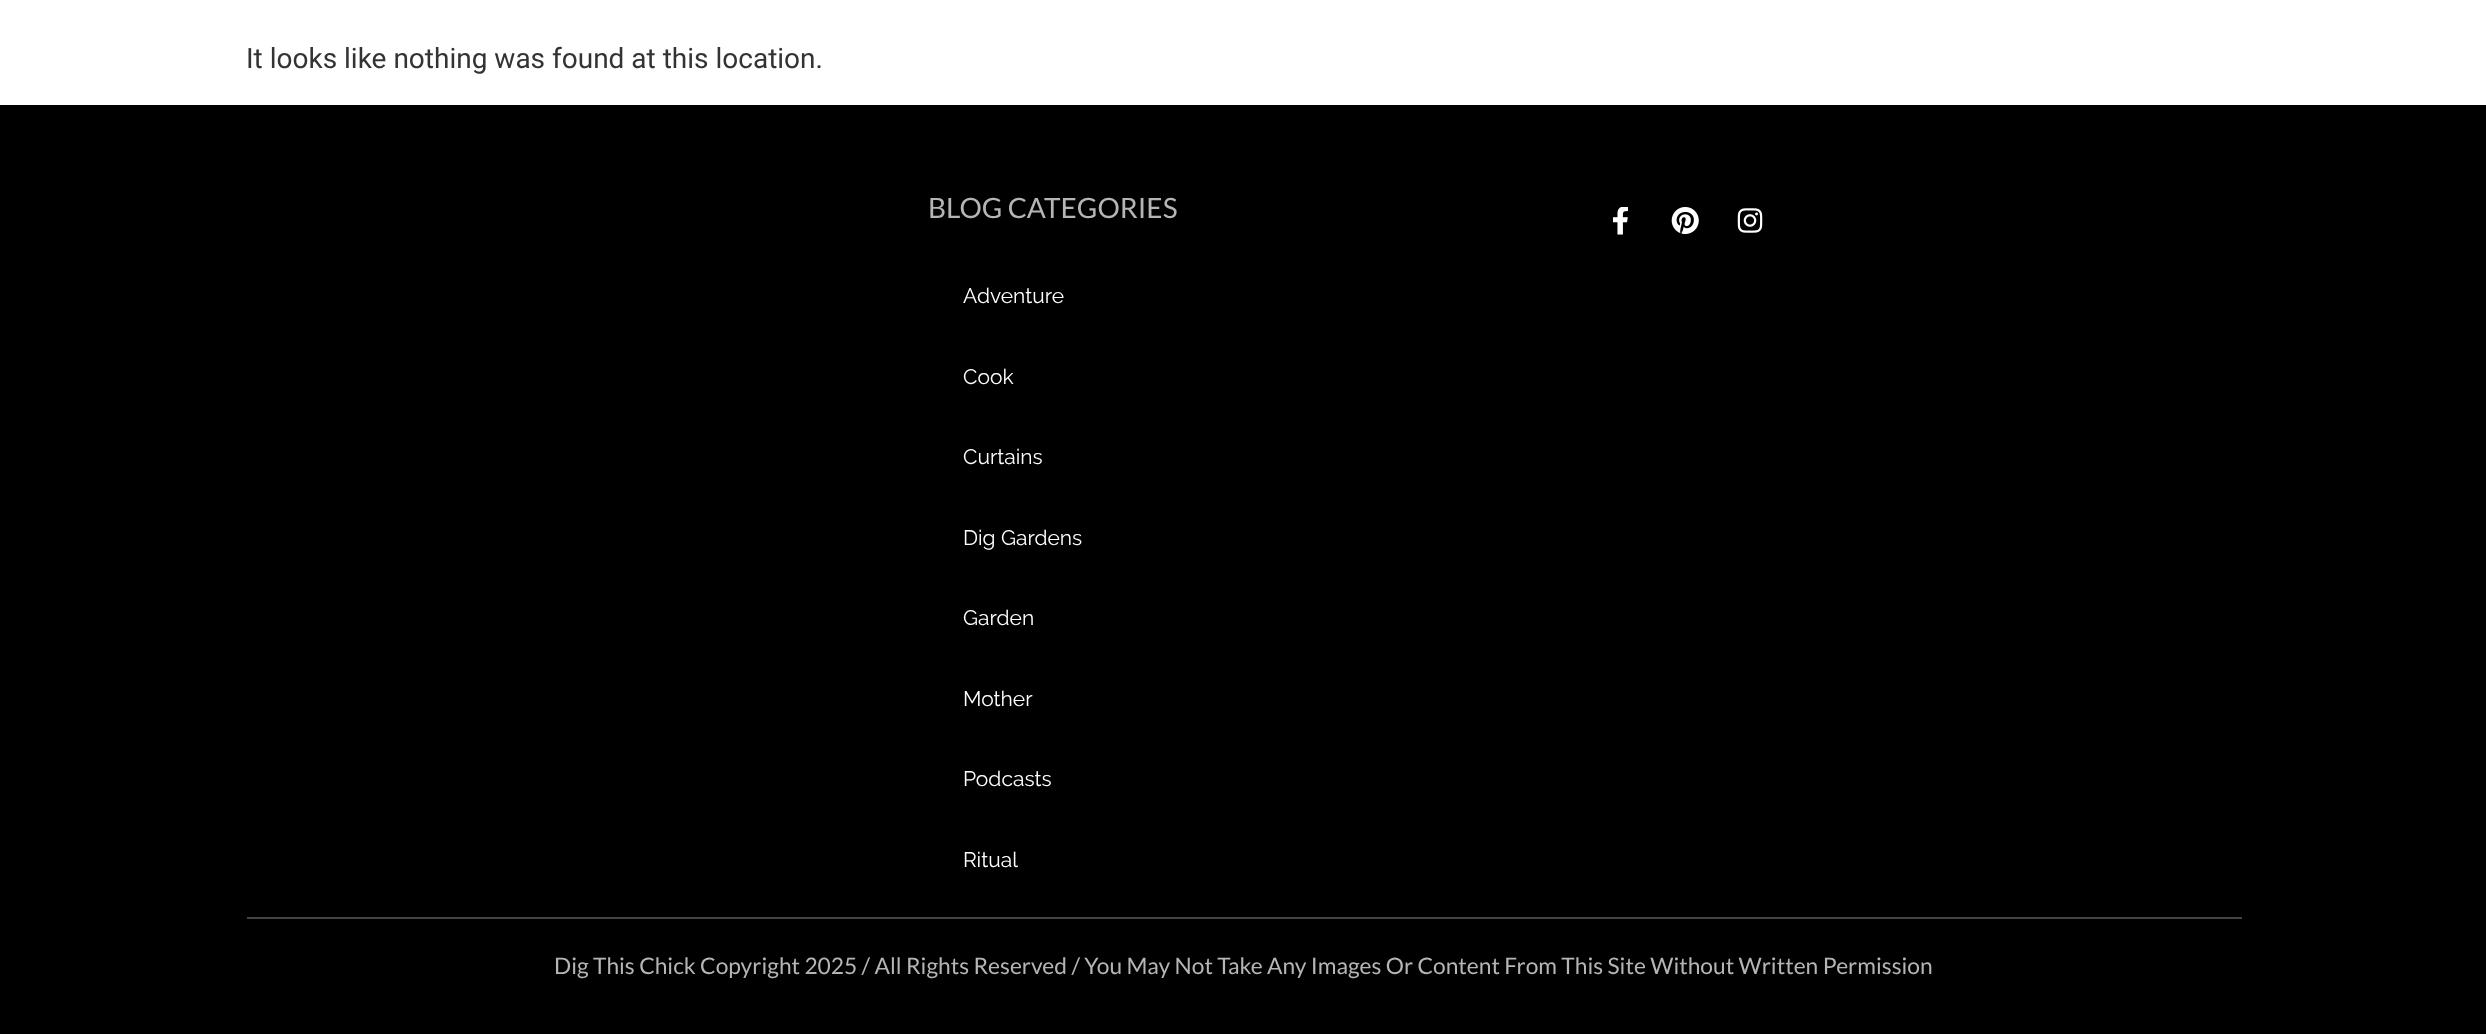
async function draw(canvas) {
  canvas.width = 2486;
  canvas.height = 1034;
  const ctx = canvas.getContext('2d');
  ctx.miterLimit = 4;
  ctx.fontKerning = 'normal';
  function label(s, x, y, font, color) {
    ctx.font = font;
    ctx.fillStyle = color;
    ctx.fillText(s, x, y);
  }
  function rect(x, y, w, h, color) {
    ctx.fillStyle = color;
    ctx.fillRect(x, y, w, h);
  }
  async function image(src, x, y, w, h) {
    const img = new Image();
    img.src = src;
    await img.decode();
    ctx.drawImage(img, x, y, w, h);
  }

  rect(0, 0, 2486, 1034, '#fff');
  label('It looks like nothing was found at this location.', 246, 68, '28px Roboto', '#333');
  rect(0, 105, 2486, 929, '#000');
  label('BLOG CATEGORIES', 928, 218, '28px Lato', '#b5b5b5');
  label('Adventure', 963, 303, '21px Raleway', '#fff');
  label('Cook', 963, 384, '21px Raleway', '#fff');
  label('Curtains', 963, 464, '21px Raleway', '#fff');
  label('Dig Gardens', 963, 545, '21px Raleway', '#fff');
  label('Garden', 963, 625, '21px Raleway', '#fff');
  label('Mother', 963, 706, '21px Raleway', '#fff');
  label('Podcasts', 963, 786, '21px Raleway', '#fff');
  label('Ritual', 963, 867, '21px Raleway', '#fff');
  await image('assets/img1.png', 1613, 207, 15, 28);
  await image('assets/img2.png', 1671, 207, 28, 28);
  await image('assets/img3.png', 1737, 208, 26, 25);
  rect(247, 917, 1995, 2, '#444');
  label('Dig This Chick Copyright 2025 / All Rights Reserved / You May Not Take Any Images Or Content From This Site Without Written Permission', 554, 974, '22.75px Lato', '#b5b5b5');
}

draw(document.querySelector('canvas'));
